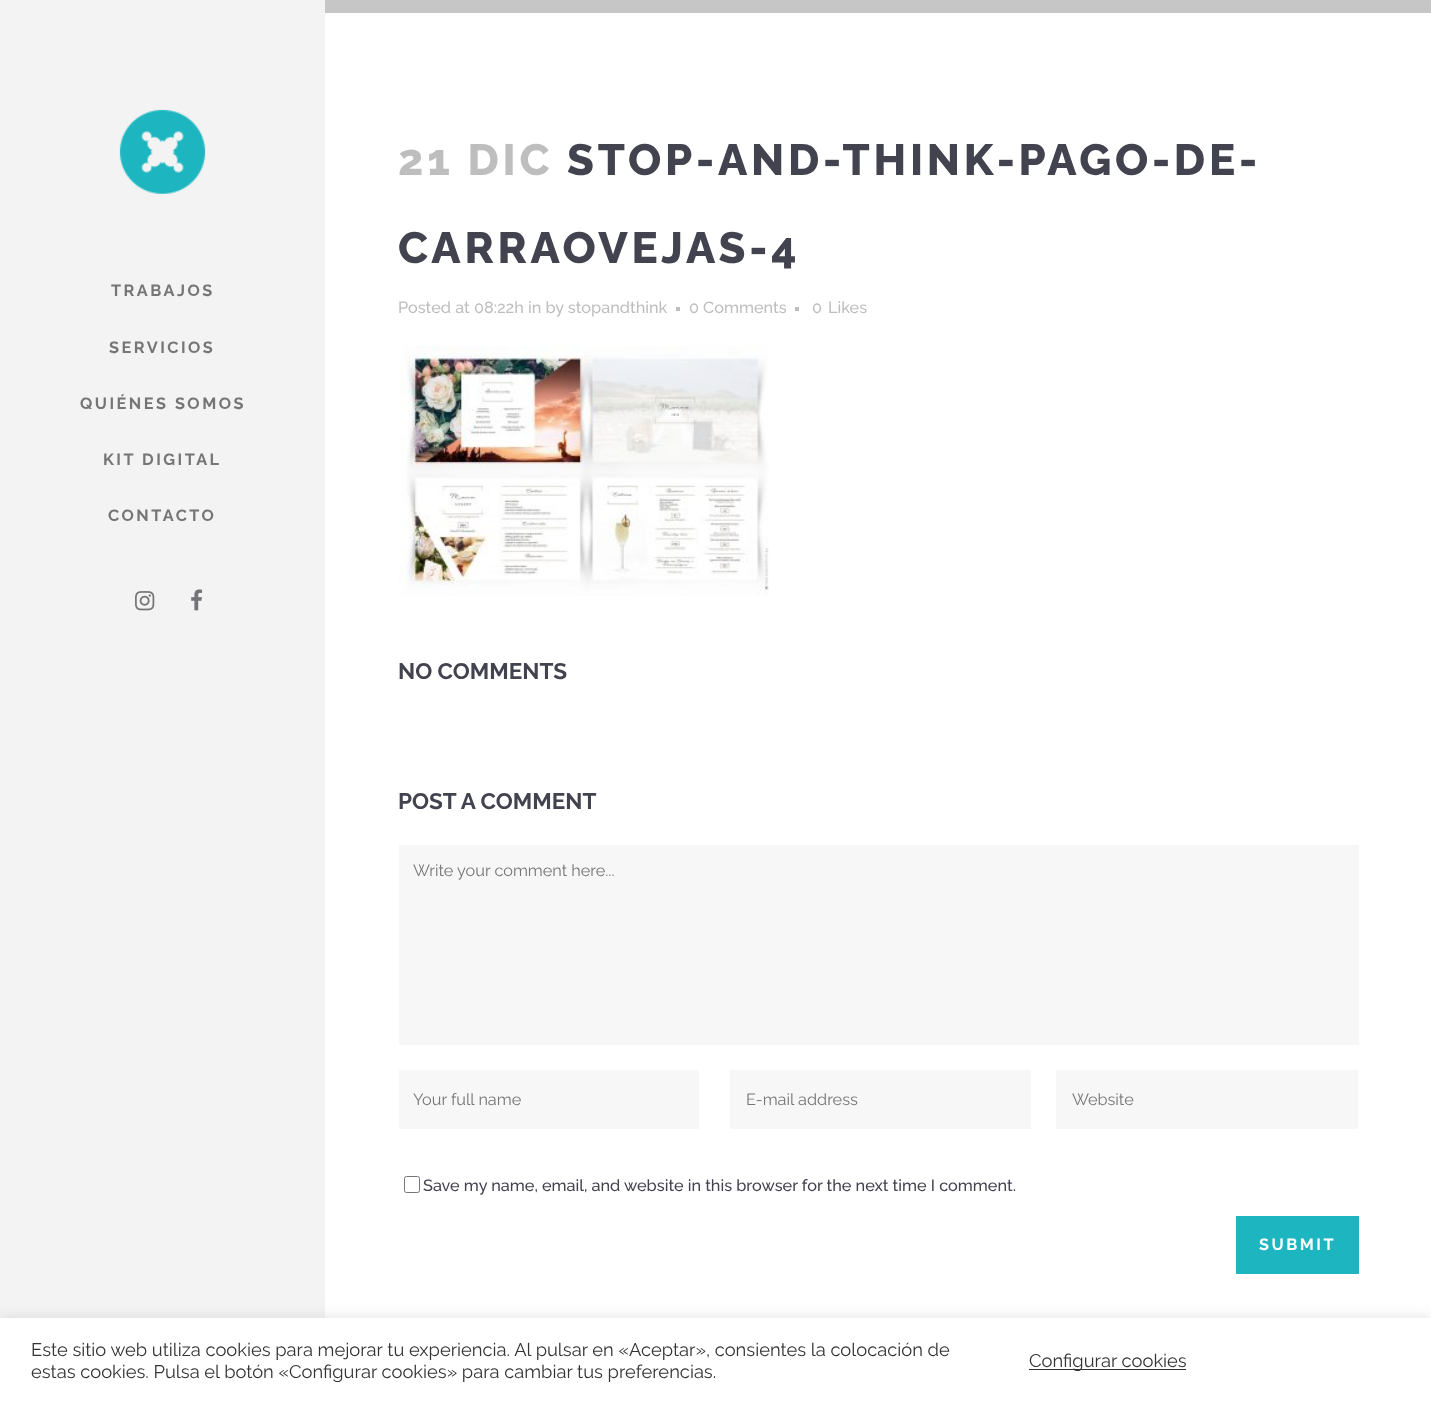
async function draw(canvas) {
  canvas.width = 1431;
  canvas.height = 1403;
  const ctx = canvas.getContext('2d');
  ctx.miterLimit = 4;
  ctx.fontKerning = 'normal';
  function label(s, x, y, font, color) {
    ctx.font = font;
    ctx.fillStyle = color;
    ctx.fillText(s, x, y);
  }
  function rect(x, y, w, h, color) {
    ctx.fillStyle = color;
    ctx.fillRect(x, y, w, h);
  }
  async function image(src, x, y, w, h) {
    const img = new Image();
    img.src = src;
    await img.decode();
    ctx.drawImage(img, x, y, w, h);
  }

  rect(0, 0, 1431, 1403, '#fff');
  rect(0, 0, 325, 1318, '#f3f3f3');
  await image('assets/img1.png', 119, 109, 87, 85);
  ctx.letterSpacing = '2.5px';
  label('TRABAJOS', 111, 296, 'bold 16.25px Raleway', '#757575');
  label('SERVICIOS', 109, 353, 'bold 16.25px Raleway', '#757575');
  label('QUIÉNES SOMOS', 80, 409, 'bold 16.25px Raleway', '#757575');
  label('KIT DIGITAL', 103, 465, 'bold 16.25px Raleway', '#757575');
  label('CONTACTO', 108, 521, 'bold 16.25px Raleway', '#757575');
  await image('assets/img2.png', 135, 591, 20, 20);
  await image('assets/img3.png', 191, 589, 12, 22);
  rect(325, 0, 1106, 13, '#c6c6c6');
  ctx.letterSpacing = '3.75px';
  label('21 DIC', 398, 175, '800 43.75px Raleway', '#bebebe');
  label('STOP-AND-THINK-PAGO-DE-', 567, 175, '800 43.75px Raleway', '#43434f');
  label('CARRAOVEJAS-4', 398, 263, '800 43.75px Raleway', '#43434f');
  ctx.letterSpacing = '0px';
  label('Posted at 08:22h in by stopandthink', 398, 313, '500 16.25px Raleway', '#bebebe');
  rect(676, 307, 4, 4, '#bebebe');
  label('0 Comments', 689, 313, '500 16.25px Raleway', '#bebebe');
  rect(795, 307, 4, 4, '#bebebe');
  label('0', 812, 313, '500 16.25px Raleway', '#bebebe');
  label('Likes', 828, 313, '500 16.25px Raleway', '#bebebe');
  await image('assets/img4.png', 399, 345, 370, 251);
  label('NO COMMENTS', 398, 679, 'bold 22.5px Raleway', '#43434f');
  label('POST A COMMENT', 398, 809, 'bold 22.5px Raleway', '#43434f');
  rect(399, 845, 960, 200, '#f7f7f7');
  label('Write your comment here...', 413, 876, '16.25px Raleway', '#757575');
  rect(399, 1070, 300, 59, '#f7f7f7');
  label('Your full name', 413, 1105, '16.25px Raleway', '#757575');
  rect(730, 1070, 301, 59, '#f7f7f7');
  label('E-mail address', 746, 1105, '16.25px Raleway', '#757575');
  rect(1056, 1070, 302, 59, '#f7f7f7');
  label('Website', 1072, 1105, '16.25px Raleway', '#757575');
  ctx.beginPath();
  ctx.roundRect(404.5, 1176.5, 15, 16, 2);
  ctx.strokeStyle = '#767676';
  ctx.stroke();
  label('Save my name, email, and website in this browser for the next time I comment.', 423, 1191, '500 16.25px Raleway', '#43434f');
  rect(1236, 1216, 123, 58, '#1db6c0');
  ctx.letterSpacing = '2.5px';
  label('SUBMIT', 1259, 1250, 'bold 16.25px Raleway', '#fff');
  ctx.fillStyle = '#acabab4d';
  ctx.filter = 'blur(6px)';
  ctx.beginPath();
  ctx.rect(0, 1316, 1431, 87);
  ctx.fill();
  ctx.filter = 'none';
  rect(0, 1318, 1431, 85, '#fff');
  ctx.letterSpacing = '0px';
  label('Este sitio web utiliza cookies para mejorar tu experiencia. Al pulsar en «Aceptar», consientes la colocación de', 31, 1356, '18.33px Raleway', '#333');
  label('estas cookies. Pulsa el botón «Configurar cookies» para cambiar tus preferencias.', 31, 1378, '18.33px Raleway', '#333');
  rect(1029, 1369, 157, 1, '#303030');
  label('Configurar cookies', 1029, 1367, '18.33px Raleway', '#333');
}

draw(document.querySelector('canvas'));
